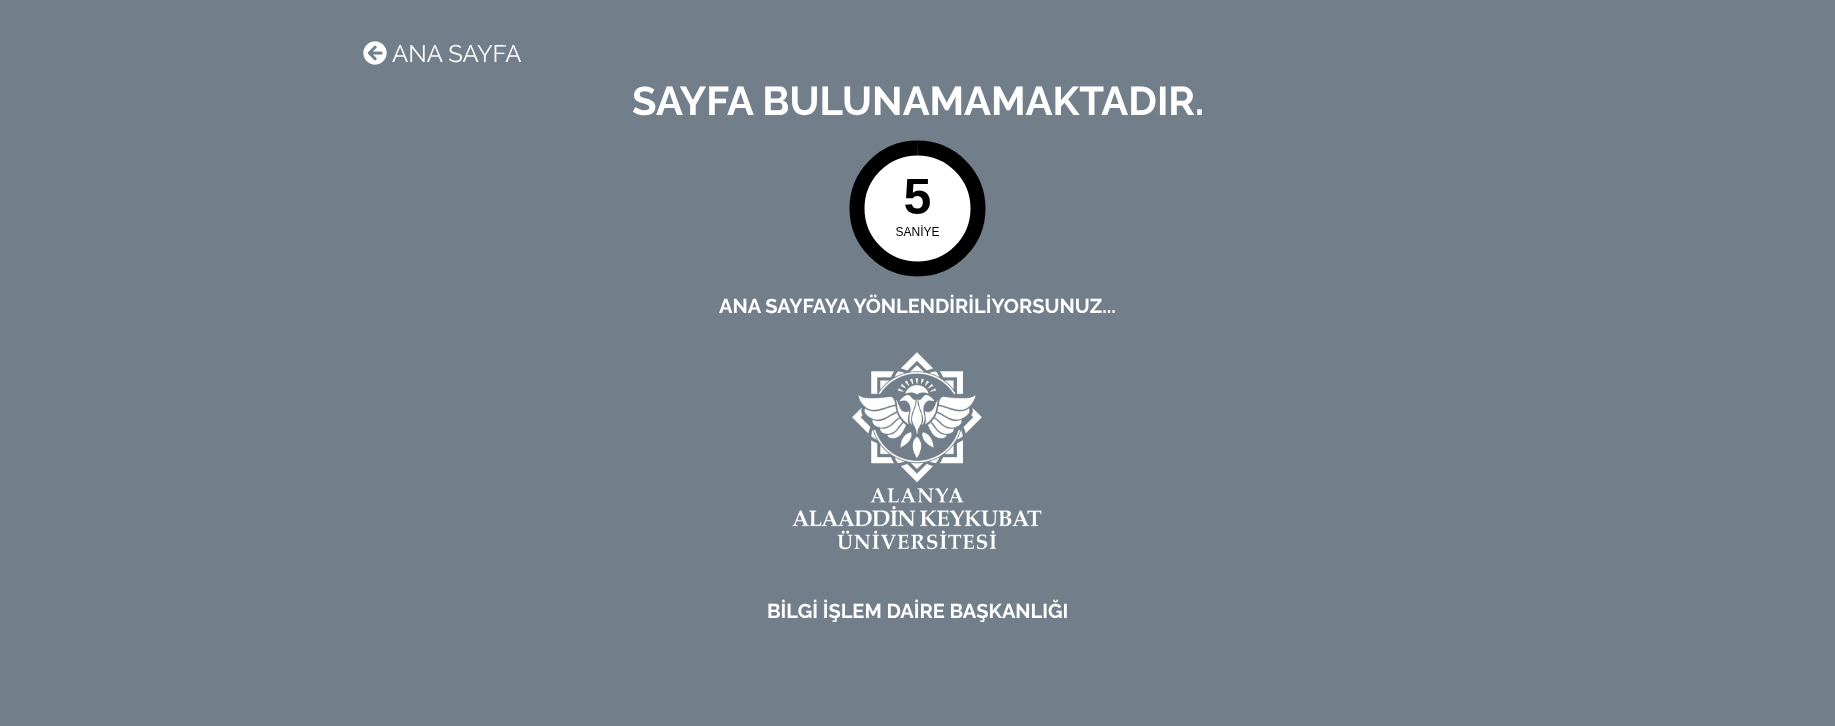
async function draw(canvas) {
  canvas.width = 1835;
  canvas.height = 726;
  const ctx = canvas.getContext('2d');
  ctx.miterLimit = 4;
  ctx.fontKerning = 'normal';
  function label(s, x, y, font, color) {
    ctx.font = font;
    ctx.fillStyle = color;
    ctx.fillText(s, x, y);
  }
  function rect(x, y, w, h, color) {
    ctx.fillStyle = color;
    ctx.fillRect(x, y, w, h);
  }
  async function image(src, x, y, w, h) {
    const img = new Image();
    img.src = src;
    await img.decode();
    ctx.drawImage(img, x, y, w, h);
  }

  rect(0, 0, 1835, 726, '#727f8b');
  await image('assets/img1.png', 363, 41, 24, 24);
  label('ANA SAYFA', 392, 62, '24px Raleway', '#fff');
  label('SAYFA BULUNAMAMAKTADIR.', 632, 115, 'bold 40px Raleway', '#fff');
  await image('assets/img2.png', 849, 140, 137, 137);
  label('ANA SAYFAYA YÖNLENDİRİLİYORSUNUZ...', 719, 313, 'bold 20px Raleway', '#fff');
  await image('assets/img3.png', 792, 352, 250, 198);
  label('BİLGİ İŞLEM DAİRE BAŞKANLIĞI', 767, 618, 'bold 20px Raleway', '#fff');
}

draw(document.querySelector('canvas'));
